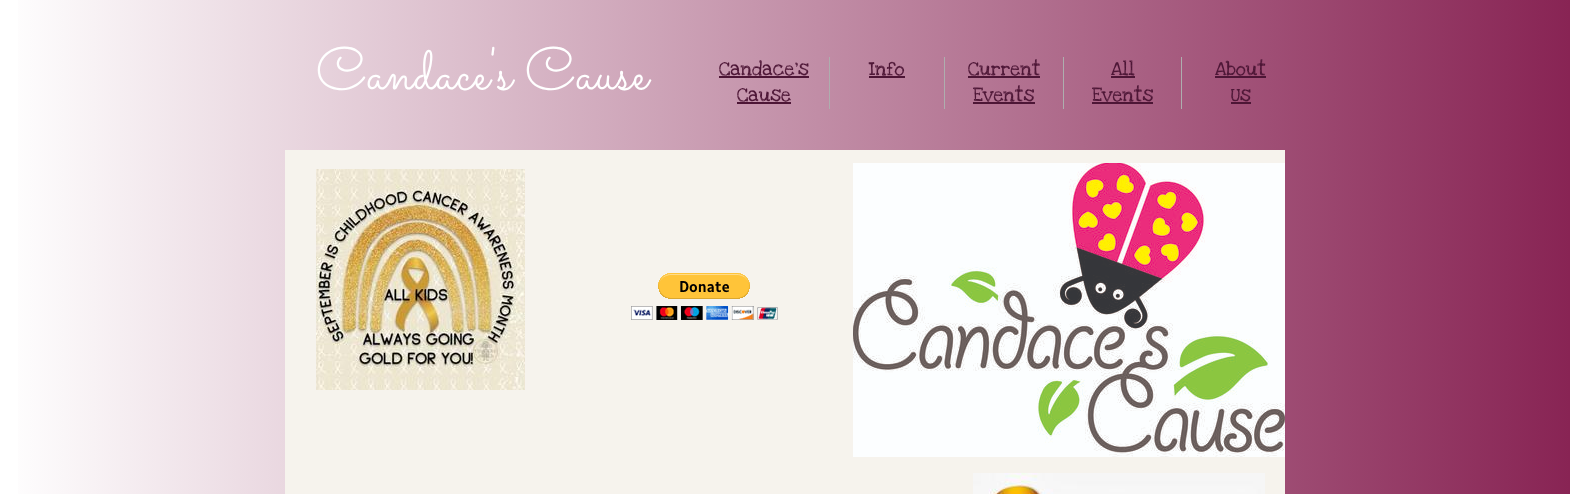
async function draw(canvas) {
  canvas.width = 1570;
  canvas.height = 494;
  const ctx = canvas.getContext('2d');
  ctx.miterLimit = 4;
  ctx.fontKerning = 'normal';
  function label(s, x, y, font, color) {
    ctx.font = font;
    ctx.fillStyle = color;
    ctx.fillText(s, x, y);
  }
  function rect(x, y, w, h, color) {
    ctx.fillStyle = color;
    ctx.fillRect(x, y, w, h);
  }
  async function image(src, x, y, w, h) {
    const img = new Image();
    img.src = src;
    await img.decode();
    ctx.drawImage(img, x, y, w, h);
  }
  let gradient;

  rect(0, 0, 1570, 494, '#fff');
  gradient = ctx.createLinearGradient(0, 247, 1570, 247);
  gradient.addColorStop(0, '#fff');
  gradient.addColorStop(1, '#882454');
  ctx.fillStyle = gradient;
  ctx.fillRect(18, 0, 1552, 494);
  rect(285, 150, 1000, 344, '#f6f3ed');
  label('Candace\'s Cause', 316, 89, '60px Sacramento', '#fff');
  rect(829, 57, 1, 52, '#aeaeae');
  label('Candace\'s', 719, 75, '20px Love Ya Like A Sister', '#4d1636');
  rect(719, 76, 90, 2, '#4d1636');
  label('Cause', 737, 101, '20px Love Ya Like A Sister', '#4d1636');
  rect(737, 102, 54, 2, '#4d1636');
  rect(944, 57, 1, 52, '#aeaeae');
  label('Info', 869, 75, '20px Love Ya Like A Sister', '#4d1636');
  rect(869, 76, 36, 2, '#4d1636');
  rect(1063, 57, 1, 52, '#aeaeae');
  label('Current', 968, 75, '20px Love Ya Like A Sister', '#4d1636');
  rect(968, 76, 72, 2, '#4d1636');
  label('Events', 973, 101, '20px Love Ya Like A Sister', '#4d1636');
  rect(973, 102, 62, 2, '#4d1636');
  rect(1181, 57, 1, 52, '#aeaeae');
  label('All', 1111, 75, '20px Love Ya Like A Sister', '#4d1636');
  rect(1111, 76, 24, 2, '#4d1636');
  label('Events', 1092, 101, '20px Love Ya Like A Sister', '#4d1636');
  rect(1092, 102, 61, 2, '#4d1636');
  label('About', 1215, 75, '20px Love Ya Like A Sister', '#4d1636');
  rect(1215, 76, 51, 2, '#4d1636');
  label('Us', 1231, 101, '20px Love Ya Like A Sister', '#4d1636');
  rect(1231, 102, 20, 2, '#4d1636');
  await image('assets/img1.png', 316, 169, 209, 221);
  await image('assets/img2.png', 631, 273, 147, 47);
  await image('assets/img3.png', 853, 163, 432, 294);
  await image('assets/img4.png', 973, 473, 292, 21);
}

draw(document.querySelector('canvas'));
